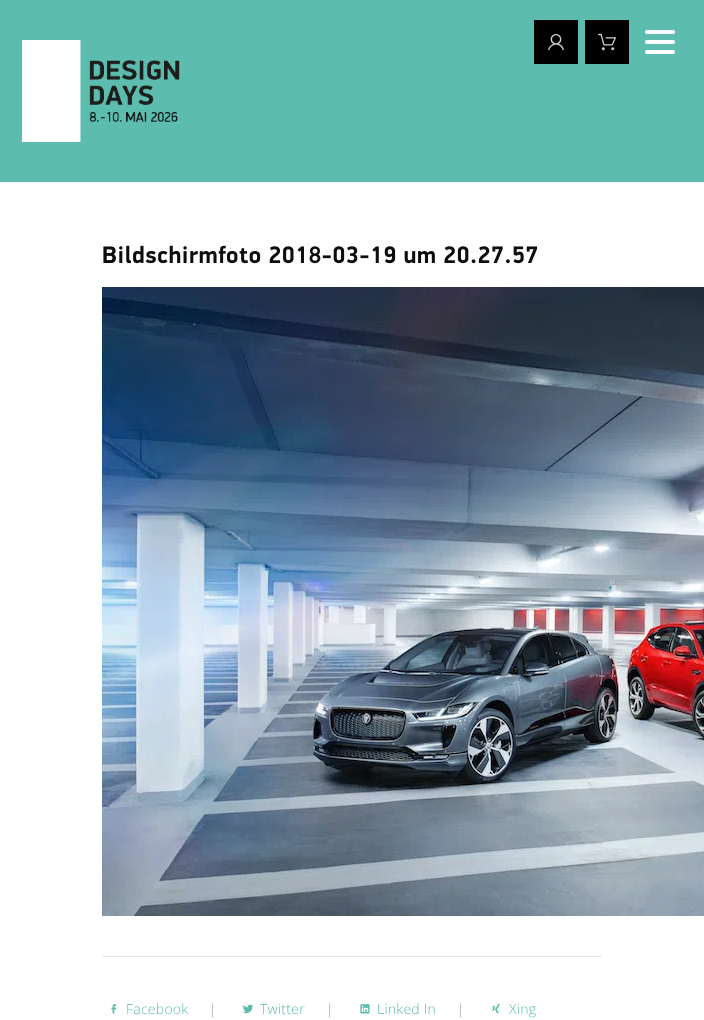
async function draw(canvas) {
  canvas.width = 704;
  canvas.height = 1020;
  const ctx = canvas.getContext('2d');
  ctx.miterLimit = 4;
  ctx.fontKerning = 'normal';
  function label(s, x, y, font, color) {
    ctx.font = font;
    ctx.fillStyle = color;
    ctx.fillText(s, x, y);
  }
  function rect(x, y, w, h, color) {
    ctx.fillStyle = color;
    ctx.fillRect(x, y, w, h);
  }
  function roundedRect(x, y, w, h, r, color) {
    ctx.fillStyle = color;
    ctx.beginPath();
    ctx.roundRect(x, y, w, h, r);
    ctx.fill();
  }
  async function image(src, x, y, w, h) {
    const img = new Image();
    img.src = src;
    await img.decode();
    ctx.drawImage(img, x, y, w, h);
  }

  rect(0, 0, 704, 1020, '#fff');
  rect(0, 0, 704, 182, '#5cbdae');
  await image('assets/img1.png', 22, 40, 158, 102);
  rect(534, 20, 44, 44, '#000');
  await image('assets/img2.png', 548, 34, 16, 16);
  rect(585, 20, 44, 44, '#000');
  await image('assets/img3.png', 598, 33, 18, 18);
  roundedRect(645, 40, 30, 4, 2, '#fff');
  roundedRect(645, 30, 30, 4, 2, '#fff');
  roundedRect(645, 50, 30, 4, 2, '#fff');
  await image('assets/img4.png', 103, 245, 435, 19);
  await image('assets/img5.png', 102, 287, 602, 629);
  rect(102, 956, 500, 1, '#e6e6e6');
  await image('assets/img6.png', 111, 1004, 6, 10);
  ctx.letterSpacing = '0.25px';
  label('Facebook', 126, 1014, '300 14px Open Sans', '#5cbdae');
  label('|', 209, 1014, '300 14px Open Sans', '#999');
  await image('assets/img7.png', 243, 1004, 11, 10);
  label('Twitter', 260, 1014, '300 14px Open Sans', '#5cbdae');
  label('|', 326, 1014, '300 14px Open Sans', '#999');
  await image('assets/img8.png', 360, 1004, 10, 10);
  label('Linked In', 377, 1014, '300 14px Open Sans', '#5cbdae');
  label('|', 457, 1014, '300 14px Open Sans', '#999');
  await image('assets/img9.png', 492, 1004, 8, 10);
  label('Xing', 509, 1014, '300 14px Open Sans', '#5cbdae');
}

draw(document.querySelector('canvas'));
